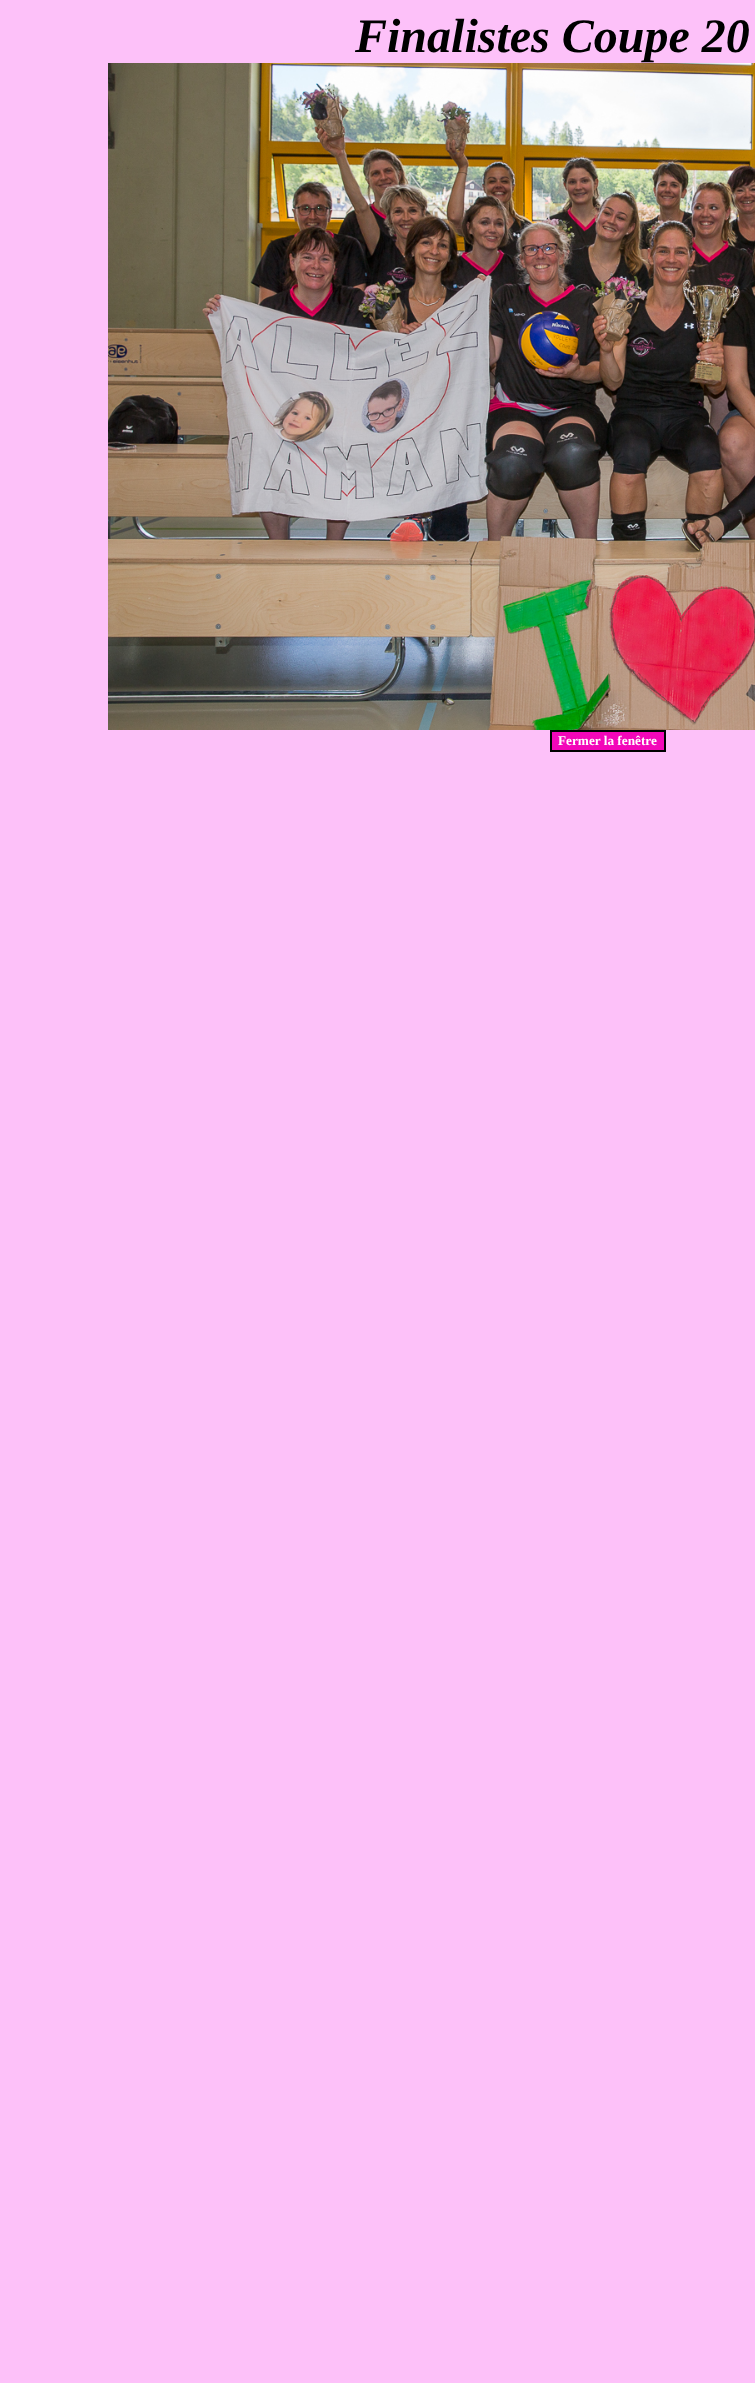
async function draw(canvas) {
  canvas.width = 755;
  canvas.height = 2383;
  const ctx = canvas.getContext('2d');
  ctx.miterLimit = 4;
  ctx.fontKerning = 'normal';
  function label(s, x, y, font, color) {
    ctx.font = font;
    ctx.fillStyle = color;
    ctx.fillText(s, x, y);
  }
  function rect(x, y, w, h, color) {
    ctx.fillStyle = color;
    ctx.fillRect(x, y, w, h);
  }
  async function image(src, x, y, w, h) {
    const img = new Image();
    img.src = src;
    await img.decode();
    ctx.drawImage(img, x, y, w, h);
  }

  rect(0, 0, 755, 2383, '#fdc1f9');
  label('Finalistes Coupe 20', 355, 52, 'italic bold 48px Liberation Serif', '#000');
  await image('assets/img1.png', 108, 63, 647, 667);
  ctx.fillStyle = '#f307b9';
  ctx.beginPath();
  ctx.rect(551, 731, 114, 20);
  ctx.fill();
  ctx.strokeStyle = '#000';
  ctx.lineWidth = 2;
  ctx.stroke();
  label('Fermer la fenêtre', 558, 745, 'bold 13.25px Liberation Serif', '#fff');
}

draw(document.querySelector('canvas'));
